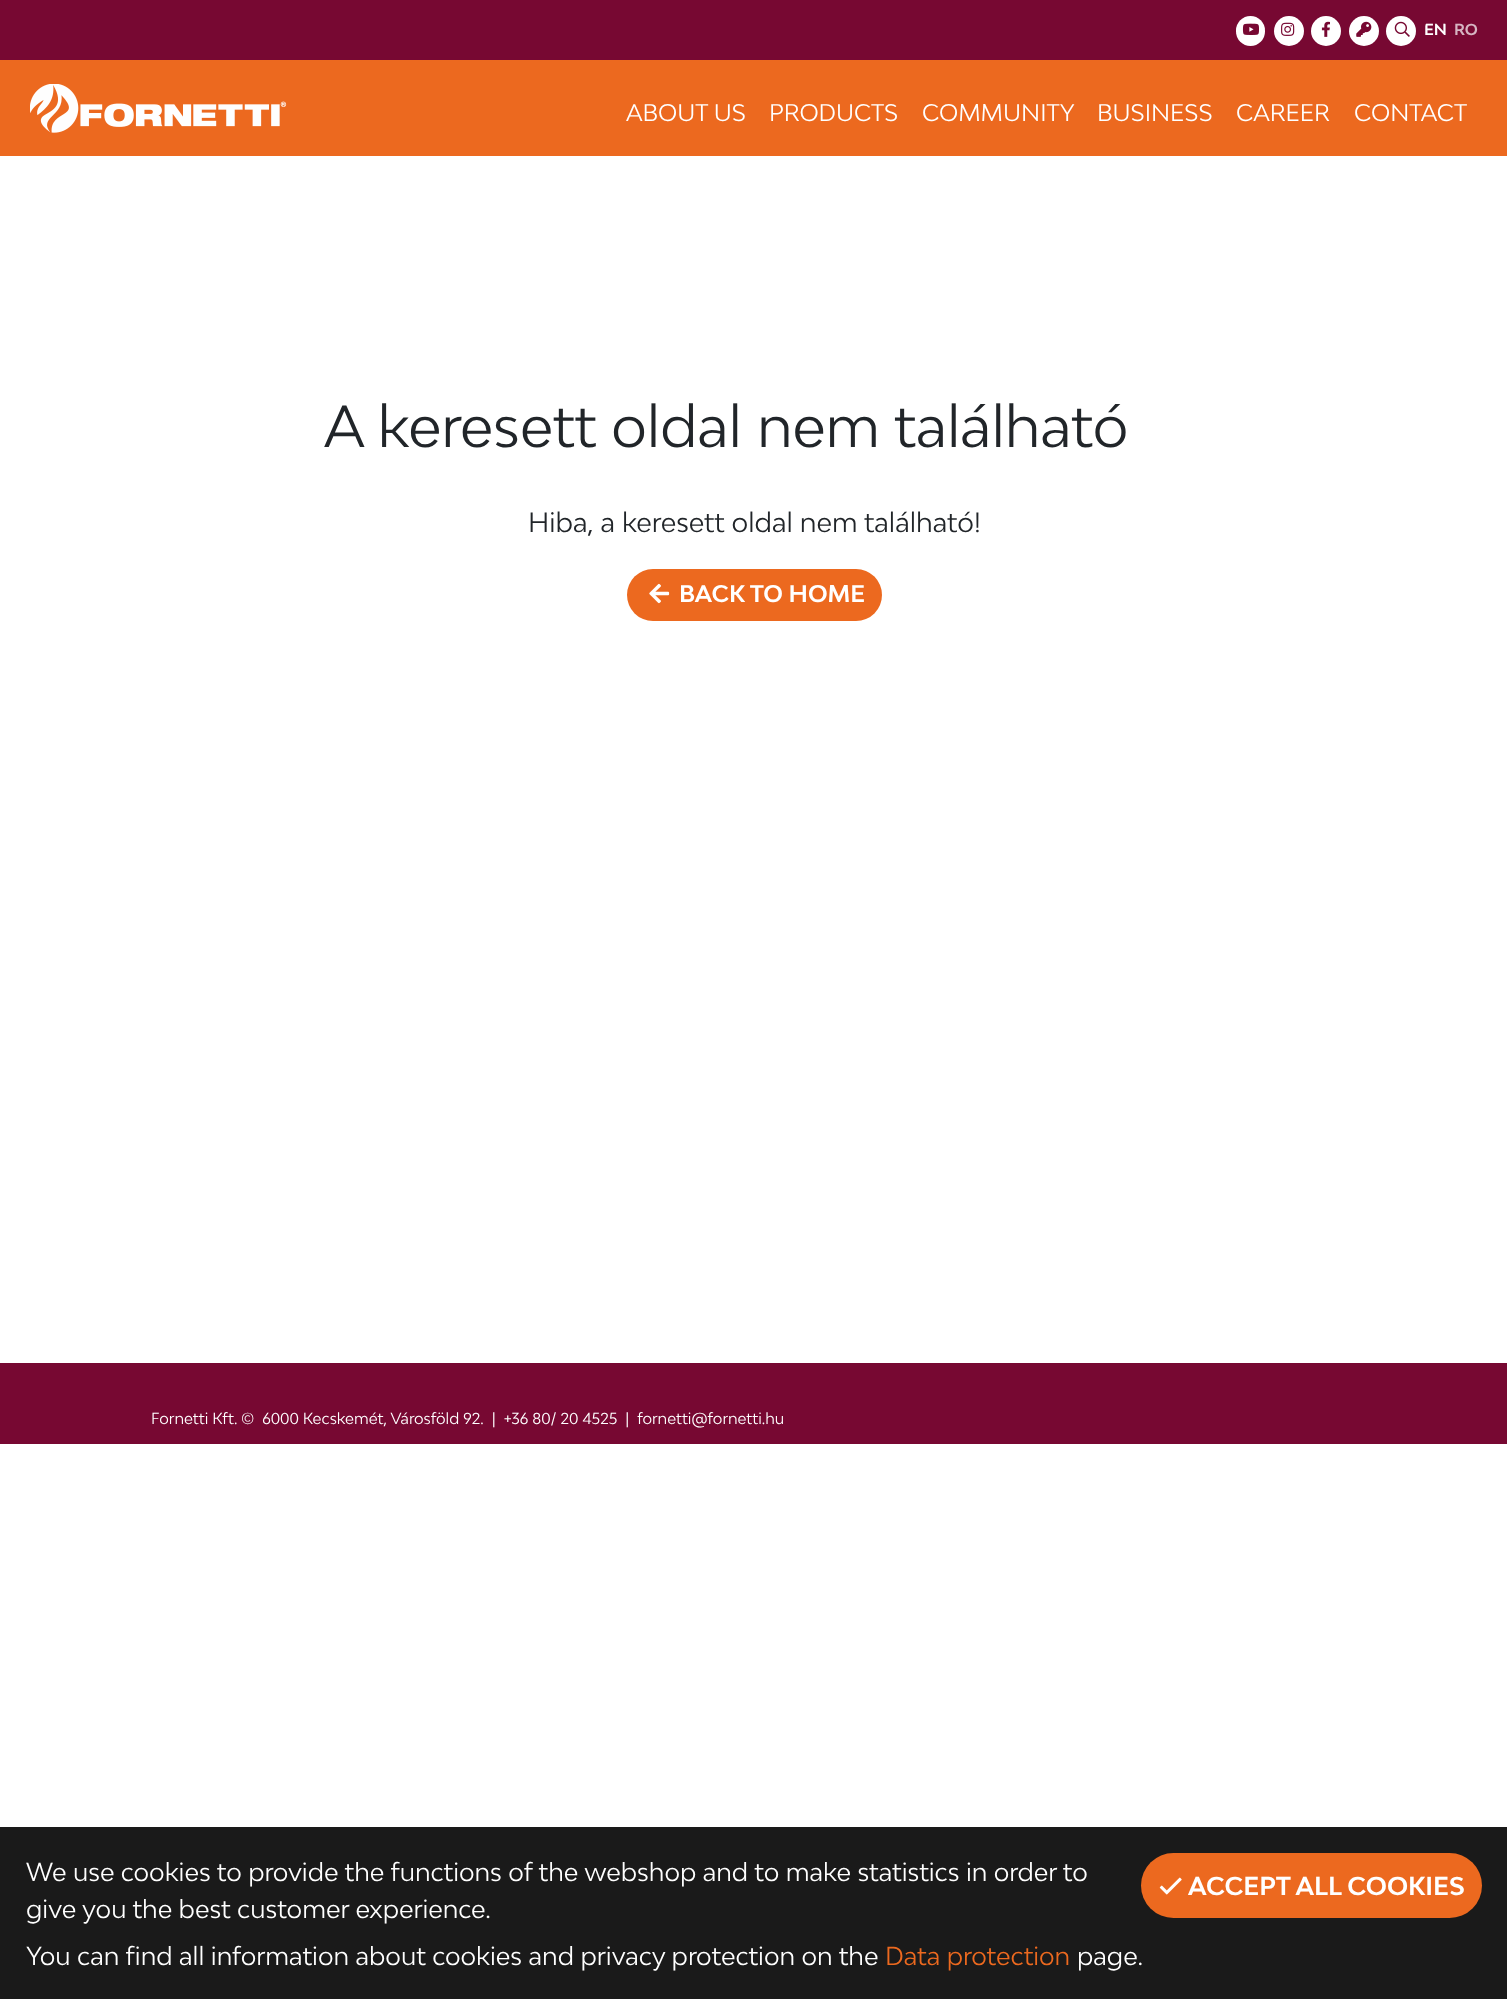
async function draw(canvas) {
  canvas.width = 1507;
  canvas.height = 1999;
  const ctx = canvas.getContext('2d');
  ctx.miterLimit = 4;
  ctx.fontKerning = 'normal';
  function label(s, x, y, font, color) {
    ctx.font = font;
    ctx.fillStyle = color;
    ctx.fillText(s, x, y);
  }
  function rect(x, y, w, h, color) {
    ctx.fillStyle = color;
    ctx.fillRect(x, y, w, h);
  }
  function roundedRect(x, y, w, h, r, color) {
    ctx.fillStyle = color;
    ctx.beginPath();
    ctx.roundRect(x, y, w, h, r);
    ctx.fill();
  }
  async function image(src, x, y, w, h) {
    const img = new Image();
    img.src = src;
    await img.decode();
    ctx.drawImage(img, x, y, w, h);
  }
  let path;

  rect(0, 0, 1507, 1999, '#fff');
  rect(0, 0, 1507, 60, '#770832');
  roundedRect(1236, 16, 29, 30, 14.5, '#fff');
  await image('assets/img1.png', 1242, 23, 17, 12);
  ctx.beginPath();
  ctx.arc(1289, 31, 15, 0, 2 * Math.PI);
  ctx.fill();
  await image('assets/img2.png', 1281, 22, 14, 14);
  ctx.beginPath();
  ctx.arc(1326, 31, 15, 0, 2 * Math.PI);
  ctx.fill();
  await image('assets/img3.png', 1321, 21, 9, 16);
  ctx.beginPath();
  ctx.arc(1364, 31, 15, 0, 2 * Math.PI);
  ctx.fill();
  await image('assets/img4.png', 1356, 21, 16, 16);
  ctx.beginPath();
  ctx.arc(1401, 31, 15, 0, 2 * Math.PI);
  ctx.fill();
  await image('assets/img5.png', 1394, 21, 16, 16);
  ctx.save();
  path = new Path2D('M1436 16C1442 16 1447 22.5 1447 30.5C1447 39 1442 45.5 1436 45.5C1429.5 45.5 1424.5 39 1424.5 30.5C1424.5 22.5 1429.5 16 1436 16Z');
  ctx.clip(path);
  label('EN', 1424, 35, 'bold 15.1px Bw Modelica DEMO', '#fff');
  ctx.restore();
  label('RO', 1454, 35, 'bold 15.1px Bw Modelica DEMO', '#d6b5c2');
  rect(0, 60, 1507, 96, '#ec691f');
  await image('assets/img6.png', 30, 84, 257, 49);
  label('ABOUT US', 626, 121, '22.75px Bw Modelica DEMO', '#fff');
  label('PRODUCTS', 769, 121, '22.75px Bw Modelica DEMO', '#fff');
  label('COMMUNITY', 922, 121, '22.75px Bw Modelica DEMO', '#fff');
  label('BUSINESS', 1097, 121, '22.75px Bw Modelica DEMO', '#fff');
  label('CAREER', 1236, 121, '22.75px Bw Modelica DEMO', '#fff');
  label('CONTACT', 1354, 121, '22.75px Bw Modelica DEMO', '#fff');
  label('A keresett oldal nem található', 324, 447, '56px Bw Modelica DEMO', '#212529');
  label('Hiba, a keresett oldal nem található!', 528, 532, '26.25px Bw Modelica DEMO', '#212529');
  roundedRect(627, 569, 255, 52, 26, '#ec691f');
  await image('assets/img7.png', 649, 583, 21, 21);
  label('BACK TO HOME', 679, 602, 'bold 22.75px Bw Modelica DEMO', '#fff');
  rect(0, 1363, 1507, 81, '#770832');
  label('Fornetti Kft. ©  6000 Kecskemét, Városföld 92.  |  +36 80/ 20 4525  |  fornetti@fornetti.hu', 151, 1424, '15.1px Bw Modelica DEMO', '#fff');
  rect(0, 1827, 1507, 172, '#1a1a1a');
  label('We use cookies to provide the functions of the webshop and to make statistics in order to', 26, 1881, '24.5px Bw Modelica DEMO', '#fff');
  label('give you the best customer experience.', 26, 1918, '24.5px Bw Modelica DEMO', '#fff');
  roundedRect(1141, 1853, 341, 65, 32.5, '#ec691f');
  await image('assets/img8.png', 1159, 1877, 23, 18);
  label('ACCEPT ALL COOKIES', 1188, 1895, 'bold 24.5px Bw Modelica DEMO', '#fff');
  label('You can find all information about cookies and privacy protection on the', 26, 1965, '24.5px Bw Modelica DEMO', '#fff');
  label('Data protection', 885, 1965, '24.5px Bw Modelica DEMO', '#ec691f');
  label('page.', 1077, 1965, '24.5px Bw Modelica DEMO', '#fff');
}

draw(document.querySelector('canvas'));
